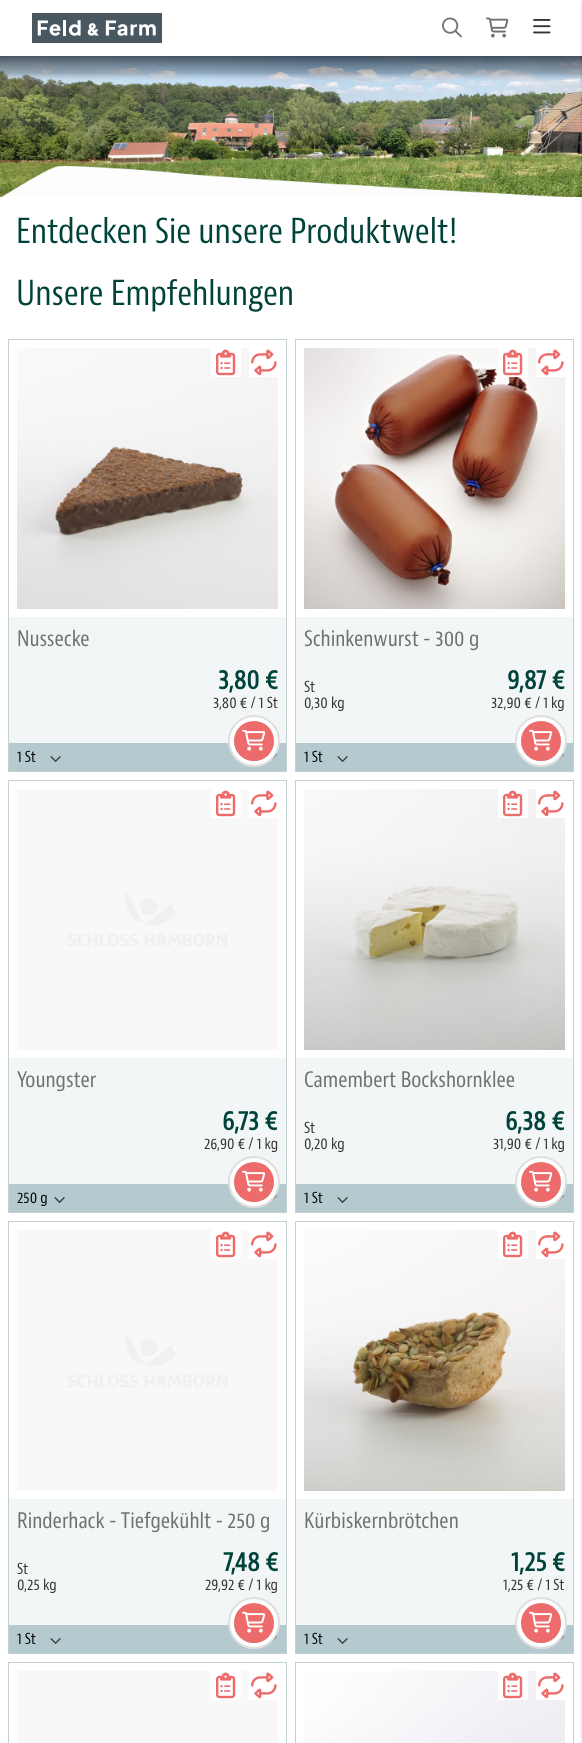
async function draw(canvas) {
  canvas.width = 582;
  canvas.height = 1743;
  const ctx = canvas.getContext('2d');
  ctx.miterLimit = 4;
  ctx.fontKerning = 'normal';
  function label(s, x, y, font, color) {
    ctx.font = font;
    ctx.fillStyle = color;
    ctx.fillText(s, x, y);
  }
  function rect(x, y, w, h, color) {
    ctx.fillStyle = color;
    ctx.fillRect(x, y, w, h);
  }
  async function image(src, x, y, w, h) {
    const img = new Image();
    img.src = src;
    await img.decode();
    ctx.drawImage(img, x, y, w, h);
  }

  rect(0, 0, 582, 1743, '#fff');
  await image('assets/img1.png', 32, 13, 130, 30);
  await image('assets/img2.png', 442, 17, 20, 21);
  await image('assets/img3.png', 486, 17, 23, 21);
  await image('assets/img5.png', 0, 56, 582, 141);
  ctx.fillStyle = '#00000026';
  ctx.filter = 'blur(1.5px)';
  ctx.beginPath();
  ctx.rect(582, 3, 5, 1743);
  ctx.fill();
  ctx.filter = 'none';
  await image('assets/img4.png', 533, 19, 18, 15);
  await image('assets/img6.png', 1, 166, 565, 31);
  label('Entdecken Sie unsere Produktwelt!', 16, 243, '36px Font', '#00433a');
  label('Unsere Empfehlungen', 16, 305, '36px Font', '#00433a');
  rect(9, 617, 277, 126, '#f3f6f6');
  ctx.strokeStyle = '#c2d2d0';
  ctx.strokeRect(8.5, 339.5, 278, 432);
  await image('assets/img9.png', 17, 348, 261, 261);
  rect(211, 348, 30, 29, '#fff');
  await image('assets/img7.png', 216, 349, 20, 27);
  rect(249, 348, 29, 29, '#fff');
  await image('assets/img8.png', 251, 349, 26, 27);
  label('Nussecke', 17, 646, '22.4px "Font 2"', '#707070');
  label('3,80 €', 218, 689, 'bold 28px Font', '#00433a');
  label('3,80 € / 1 St', 213, 708, '16px "Font 2"', '#333');
  rect(9, 743, 277, 28, '#b4cacf');
  await image('assets/img10.png', 50, 756, 11, 6);
  label('1 St', 17, 762, '16px "Font 2"', '#000');
  await image('assets/img11.png', 267, 754, 10, 6);
  ctx.beginPath();
  ctx.arc(254, 741, 23, 0, 2 * Math.PI);
  ctx.strokeStyle = '#dfdfdf';
  ctx.lineWidth = 6;
  ctx.stroke();
  ctx.beginPath();
  ctx.arc(254, 741, 22, 0, 2 * Math.PI);
  ctx.strokeStyle = '#fff';
  ctx.lineWidth = 4;
  ctx.stroke();
  ctx.fillStyle = '#ed6b6a';
  ctx.beginPath();
  ctx.arc(254, 741, 20, 0, 2 * Math.PI);
  ctx.fill();
  await image('assets/img12.png', 242, 729, 24, 22);
  rect(296, 617, 277, 126, '#f3f6f6');
  ctx.strokeStyle = '#c2d2d0';
  ctx.lineWidth = 1;
  ctx.strokeRect(295.5, 339.5, 278, 432);
  await image('assets/img13.png', 304, 348, 261, 261);
  rect(498, 348, 30, 29, '#fff');
  await image('assets/img7.png', 503, 349, 20, 27);
  rect(536, 348, 29, 29, '#fff');
  await image('assets/img8.png', 538, 349, 26, 27);
  label('Schinkenwurst - 300 g', 304, 646, '22.4px "Font 2"', '#707070');
  label('St', 304, 692, '16px "Font 2"', '#333');
  label('0,30 kg', 304, 708, '16px "Font 2"', '#333');
  label('9,87 €', 507, 689, 'bold 28px Font', '#00433a');
  label('32,90 € / 1 kg', 491, 708, '16px "Font 2"', '#333');
  rect(296, 743, 277, 28, '#b4cacf');
  await image('assets/img10.png', 337, 756, 11, 6);
  label('1 St', 304, 762, '16px "Font 2"', '#000');
  await image('assets/img11.png', 554, 754, 10, 6);
  ctx.beginPath();
  ctx.arc(541, 741, 23, 0, 2 * Math.PI);
  ctx.strokeStyle = '#dfdfdf';
  ctx.lineWidth = 6;
  ctx.stroke();
  ctx.beginPath();
  ctx.arc(541, 741, 22, 0, 2 * Math.PI);
  ctx.strokeStyle = '#fff';
  ctx.lineWidth = 4;
  ctx.stroke();
  ctx.fillStyle = '#ed6b6a';
  ctx.beginPath();
  ctx.arc(541, 741, 20, 0, 2 * Math.PI);
  ctx.fill();
  await image('assets/img12.png', 529, 729, 24, 22);
  rect(9, 1058, 277, 126, '#f3f6f6');
  ctx.strokeStyle = '#c2d2d0';
  ctx.lineWidth = 1;
  ctx.strokeRect(8.5, 780.5, 278, 432);
  await image('assets/img14.png', 17, 789, 261, 261);
  rect(211, 789, 30, 29, '#fff');
  await image('assets/img7.png', 216, 790, 20, 27);
  rect(249, 789, 29, 29, '#fff');
  await image('assets/img8.png', 251, 790, 26, 27);
  label('Youngster', 17, 1087, '22.4px "Font 2"', '#707070');
  label('6,73 €', 222, 1130, 'bold 28px Font', '#00433a');
  label('26,90 € / 1 kg', 204, 1149, '16px "Font 2"', '#333');
  rect(9, 1184, 277, 28, '#b4cacf');
  await image('assets/img10.png', 54, 1197, 11, 6);
  label('250 g', 17, 1203, '16px "Font 2"', '#000');
  await image('assets/img11.png', 267, 1195, 10, 6);
  ctx.beginPath();
  ctx.arc(254, 1182, 23, 0, 2 * Math.PI);
  ctx.strokeStyle = '#dfdfdf';
  ctx.lineWidth = 6;
  ctx.stroke();
  ctx.beginPath();
  ctx.arc(254, 1182, 22, 0, 2 * Math.PI);
  ctx.strokeStyle = '#fff';
  ctx.lineWidth = 4;
  ctx.stroke();
  ctx.fillStyle = '#ed6b6a';
  ctx.beginPath();
  ctx.arc(254, 1182, 20, 0, 2 * Math.PI);
  ctx.fill();
  await image('assets/img12.png', 242, 1170, 24, 22);
  rect(296, 1058, 277, 126, '#f3f6f6');
  ctx.strokeStyle = '#c2d2d0';
  ctx.lineWidth = 1;
  ctx.strokeRect(295.5, 780.5, 278, 432);
  await image('assets/img15.png', 304, 789, 261, 261);
  rect(498, 789, 30, 29, '#fff');
  await image('assets/img7.png', 503, 790, 20, 27);
  rect(536, 789, 29, 29, '#fff');
  await image('assets/img8.png', 538, 790, 26, 27);
  label('Camembert Bockshornklee', 304, 1087, '22.4px "Font 2"', '#707070');
  label('St', 304, 1133, '16px "Font 2"', '#333');
  label('0,20 kg', 304, 1149, '16px "Font 2"', '#333');
  label('6,38 €', 505, 1130, 'bold 28px Font', '#00433a');
  label('31,90 € / 1 kg', 493, 1149, '16px "Font 2"', '#333');
  rect(296, 1184, 277, 28, '#b4cacf');
  await image('assets/img10.png', 337, 1197, 11, 6);
  label('1 St', 304, 1203, '16px "Font 2"', '#000');
  await image('assets/img11.png', 554, 1195, 10, 6);
  ctx.beginPath();
  ctx.arc(541, 1182, 23, 0, 2 * Math.PI);
  ctx.strokeStyle = '#dfdfdf';
  ctx.lineWidth = 6;
  ctx.stroke();
  ctx.beginPath();
  ctx.arc(541, 1182, 22, 0, 2 * Math.PI);
  ctx.strokeStyle = '#fff';
  ctx.lineWidth = 4;
  ctx.stroke();
  ctx.fillStyle = '#ed6b6a';
  ctx.beginPath();
  ctx.arc(541, 1182, 20, 0, 2 * Math.PI);
  ctx.fill();
  await image('assets/img12.png', 529, 1170, 24, 22);
  rect(9, 1499, 277, 126, '#f3f6f6');
  ctx.strokeStyle = '#c2d2d0';
  ctx.lineWidth = 1;
  ctx.strokeRect(8.5, 1221.5, 278, 432);
  await image('assets/img16.png', 17, 1230, 261, 261);
  rect(211, 1230, 30, 29, '#fff');
  await image('assets/img7.png', 216, 1231, 20, 27);
  rect(249, 1230, 29, 29, '#fff');
  await image('assets/img8.png', 251, 1231, 26, 27);
  label('Rinderhack - Tiefgekühlt - 250 g', 17, 1528, '22.4px "Font 2"', '#707070');
  label('St', 17, 1574, '16px "Font 2"', '#333');
  label('0,25 kg', 17, 1590, '16px "Font 2"', '#333');
  label('7,48 €', 223, 1571, 'bold 28px Font', '#00433a');
  label('29,92 € / 1 kg', 205, 1590, '16px "Font 2"', '#333');
  rect(9, 1625, 277, 28, '#b4cacf');
  await image('assets/img10.png', 50, 1638, 11, 6);
  label('1 St', 17, 1644, '16px "Font 2"', '#000');
  await image('assets/img11.png', 267, 1636, 10, 6);
  ctx.beginPath();
  ctx.arc(254, 1623, 23, 0, 2 * Math.PI);
  ctx.strokeStyle = '#dfdfdf';
  ctx.lineWidth = 6;
  ctx.stroke();
  ctx.beginPath();
  ctx.arc(254, 1623, 22, 0, 2 * Math.PI);
  ctx.strokeStyle = '#fff';
  ctx.lineWidth = 4;
  ctx.stroke();
  ctx.fillStyle = '#ed6b6a';
  ctx.beginPath();
  ctx.arc(254, 1623, 20, 0, 2 * Math.PI);
  ctx.fill();
  await image('assets/img12.png', 242, 1611, 24, 22);
  rect(296, 1499, 277, 126, '#f3f6f6');
  ctx.strokeStyle = '#c2d2d0';
  ctx.lineWidth = 1;
  ctx.strokeRect(295.5, 1221.5, 278, 432);
  await image('assets/img17.png', 304, 1230, 261, 261);
  rect(498, 1230, 30, 29, '#fff');
  await image('assets/img7.png', 503, 1231, 20, 27);
  rect(536, 1230, 29, 29, '#fff');
  await image('assets/img8.png', 538, 1231, 26, 27);
  label('Kürbiskernbrötchen', 304, 1528, '22.4px "Font 2"', '#707070');
  label('1,25 €', 511, 1571, 'bold 28px Font', '#00433a');
  label('1,25 € / 1 St', 503, 1590, '16px "Font 2"', '#333');
  rect(296, 1625, 277, 28, '#b4cacf');
  await image('assets/img10.png', 337, 1638, 11, 6);
  label('1 St', 304, 1644, '16px "Font 2"', '#000');
  await image('assets/img11.png', 554, 1636, 10, 6);
  ctx.beginPath();
  ctx.arc(541, 1623, 23, 0, 2 * Math.PI);
  ctx.strokeStyle = '#dfdfdf';
  ctx.lineWidth = 6;
  ctx.stroke();
  ctx.beginPath();
  ctx.arc(541, 1623, 22, 0, 2 * Math.PI);
  ctx.strokeStyle = '#fff';
  ctx.lineWidth = 4;
  ctx.stroke();
  ctx.fillStyle = '#ed6b6a';
  ctx.beginPath();
  ctx.arc(541, 1623, 20, 0, 2 * Math.PI);
  ctx.fill();
  await image('assets/img12.png', 529, 1611, 24, 22);
  ctx.strokeStyle = '#c2d2d0';
  ctx.lineWidth = 1;
  ctx.strokeRect(8.5, 1662.5, 278, 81);
  rect(17, 1671, 261, 72, '#f8f8f8');
  rect(211, 1671, 30, 29, '#fff');
  await image('assets/img7.png', 216, 1672, 20, 27);
  rect(249, 1671, 29, 29, '#fff');
  await image('assets/img8.png', 251, 1672, 26, 27);
  ctx.strokeRect(295.5, 1662.5, 278, 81);
  await image('assets/img18.png', 304, 1671, 261, 72);
  rect(498, 1671, 30, 29, '#fff');
  await image('assets/img7.png', 503, 1672, 20, 27);
  rect(536, 1671, 29, 29, '#fff');
  await image('assets/img8.png', 538, 1672, 26, 27);
}

draw(document.querySelector('canvas'));
